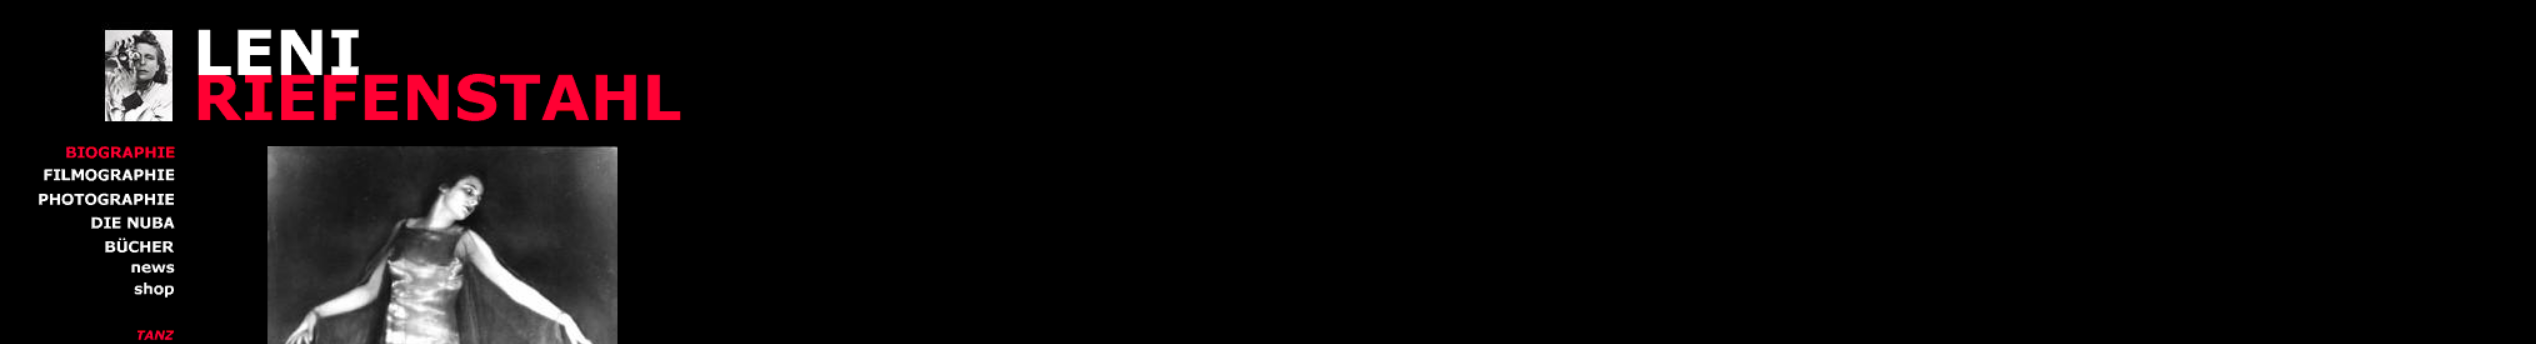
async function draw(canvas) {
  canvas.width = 2536;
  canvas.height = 344;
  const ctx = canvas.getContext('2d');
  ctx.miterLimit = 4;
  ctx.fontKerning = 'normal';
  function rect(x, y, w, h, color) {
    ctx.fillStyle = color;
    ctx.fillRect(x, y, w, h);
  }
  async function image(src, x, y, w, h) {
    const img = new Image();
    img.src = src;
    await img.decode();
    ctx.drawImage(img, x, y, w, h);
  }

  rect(0, 0, 2536, 344, '#000');
  await image('assets/img1.png', 101, 22, 72, 100);
  await image('assets/img2.png', 197, 28, 485, 94);
  await image('assets/img3.png', 66, 146, 110, 13);
  await image('assets/img4.png', 267, 146, 351, 198);
  await image('assets/img5.png', 43, 168, 133, 14);
  await image('assets/img6.png', 38, 192, 136, 14);
  await image('assets/img7.png', 91, 216, 85, 13);
  await image('assets/img8.png', 104, 237, 70, 16);
  await image('assets/img9.png', 131, 263, 45, 11);
  await image('assets/img10.png', 133, 282, 41, 16);
  await image('assets/img11.png', 137, 329, 37, 12);
}

draw(document.querySelector('canvas'));
